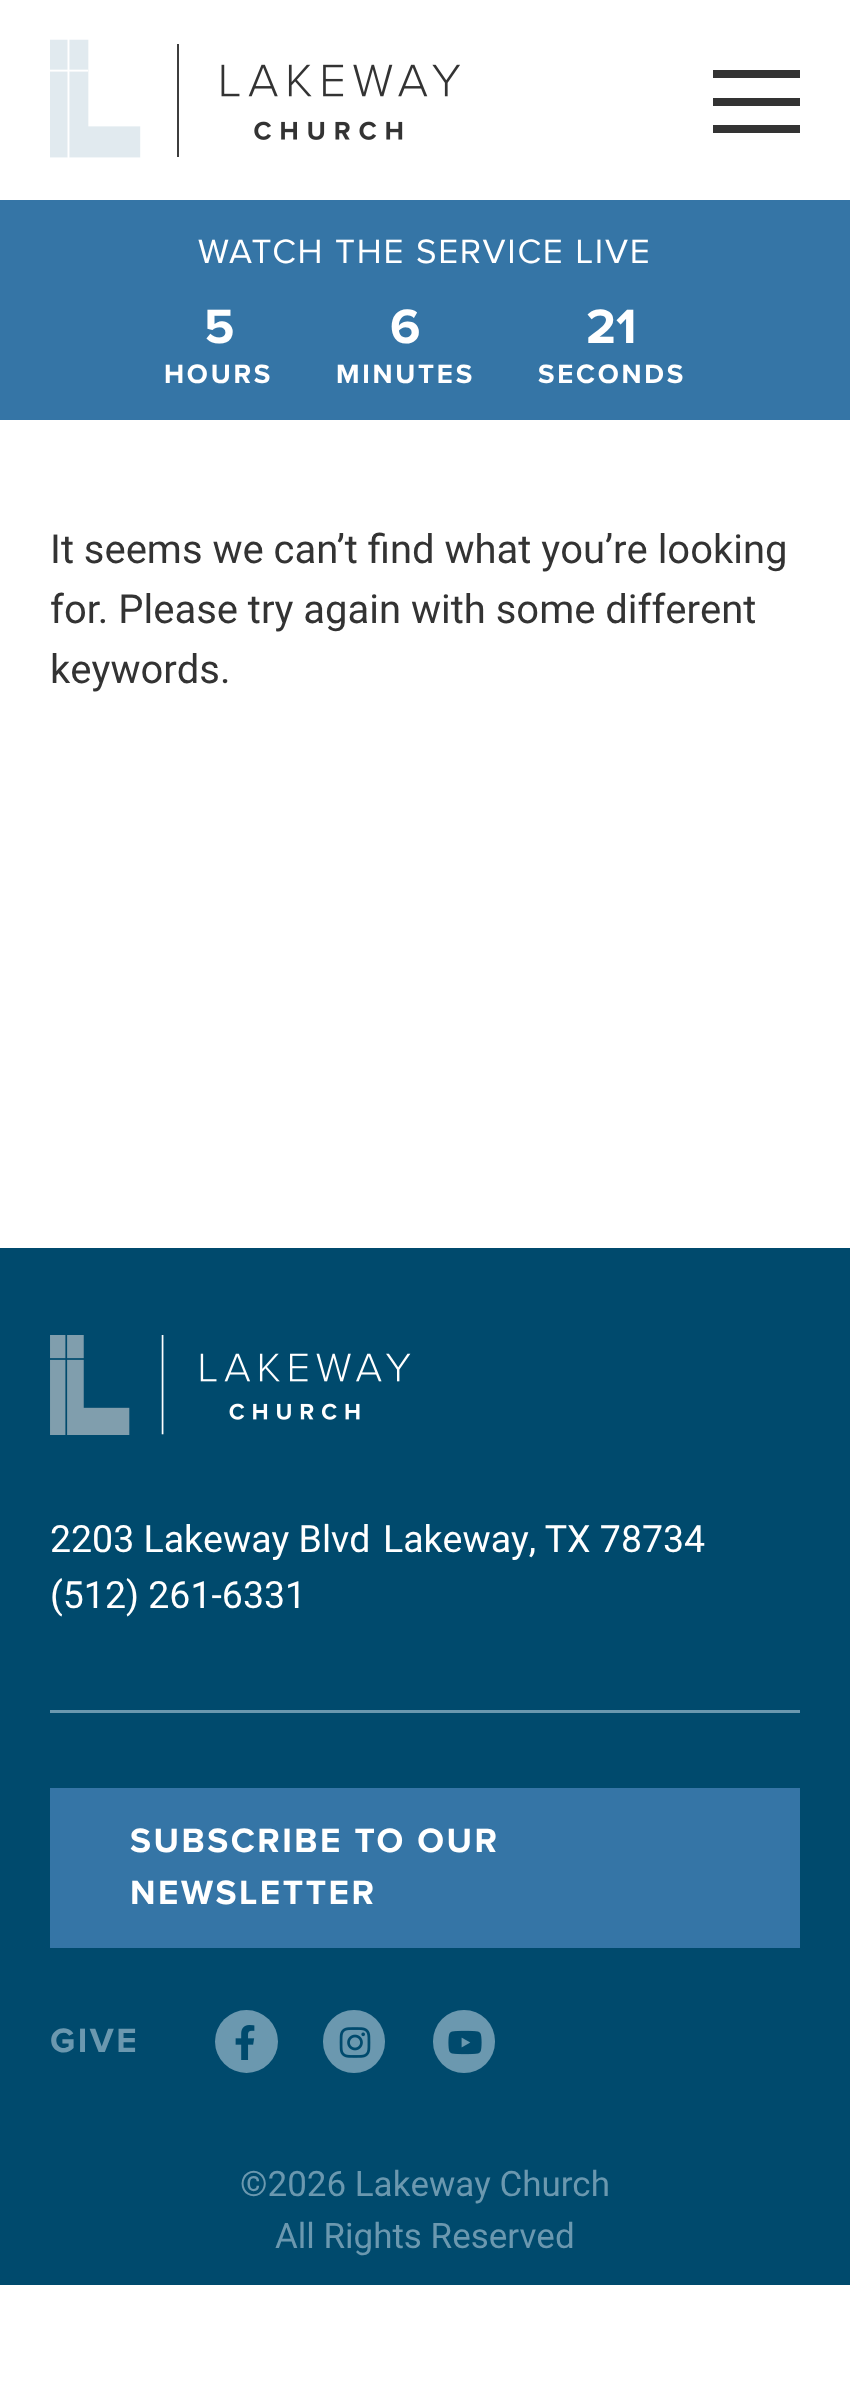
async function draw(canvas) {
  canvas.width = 850;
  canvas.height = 2390;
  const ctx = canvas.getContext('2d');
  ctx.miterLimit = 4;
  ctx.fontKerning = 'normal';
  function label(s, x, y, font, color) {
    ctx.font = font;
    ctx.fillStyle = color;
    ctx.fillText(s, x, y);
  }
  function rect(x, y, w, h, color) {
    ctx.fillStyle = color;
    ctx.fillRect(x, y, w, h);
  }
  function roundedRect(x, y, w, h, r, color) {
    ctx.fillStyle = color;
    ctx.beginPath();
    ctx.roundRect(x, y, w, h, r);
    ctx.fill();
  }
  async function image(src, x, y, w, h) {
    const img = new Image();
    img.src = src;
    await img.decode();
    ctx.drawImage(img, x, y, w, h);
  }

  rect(0, 0, 850, 2390, '#fff');
  await image('assets/img1.png', 50, 39, 410, 119);
  rect(713, 70, 87, 8, '#333');
  rect(713, 98, 87, 8, '#333');
  rect(713, 125, 87, 8, '#333');
  rect(0, 200, 850, 220, '#3575a6');
  ctx.letterSpacing = '1.75px';
  label('WATCH THE SERVICE LIVE', 198, 263, '35px Proxima Nova', '#fff');
  ctx.letterSpacing = '0px';
  label('5', 204, 343, 'bold 50px Proxima Nova', '#fff');
  ctx.letterSpacing = '2.75px';
  label('HOURS', 164, 383, 'bold 27.5px Proxima Nova', '#fff');
  ctx.letterSpacing = '0px';
  label('6', 390, 343, 'bold 50px Proxima Nova', '#fff');
  ctx.letterSpacing = '2.75px';
  label('MINUTES', 336, 383, 'bold 27.5px Proxima Nova', '#fff');
  ctx.letterSpacing = '0px';
  label('21', 586, 343, 'bold 50px Proxima Nova', '#fff');
  ctx.letterSpacing = '2.75px';
  label('SECONDS', 538, 383, 'bold 27.5px Proxima Nova', '#fff');
  ctx.letterSpacing = '0px';
  label('It seems we can’t find what you’re looking', 50, 563, '40px Roboto', '#333');
  label('for. Please try again with some different', 50, 623, '40px Roboto', '#333');
  label('keywords.', 50, 683, '40px Roboto', '#333');
  rect(0, 1248, 850, 1037, '#004a6d');
  await image('assets/img2.png', 50, 1335, 361, 100);
  label('2203 Lakeway Blvd', 50, 1552, '37.5px Roboto', '#fff');
  label('Lakeway, TX 78734', 383, 1552, '37.5px Roboto', '#fff');
  label('(512) 261-6331', 50, 1608, '37.5px Roboto', '#fff');
  label('©2026 Lakeway Church', 240, 2196, '35px Roboto', '#6b98af');
  label('All Rights Reserved', 275, 2248, '35px Roboto', '#6b98af');
  rect(50, 1710, 750, 3, '#6b98af');
  rect(50, 1788, 750, 160, '#3575a6');
  ctx.letterSpacing = '2.5px';
  label('SUBSCRIBE TO OUR', 130, 1852, 'bold 35px Proxima Nova', '#fff');
  label('NEWSLETTER', 130, 1904, 'bold 35px Proxima Nova', '#fff');
  label('GIVE', 50, 2052, 'bold 35px Proxima Nova', '#6b98af');
  ctx.beginPath();
  ctx.arc(246.5, 2041.5, 31.5, 0, 2 * Math.PI);
  ctx.fill();
  await image('assets/img3.png', 235, 2025, 20, 35);
  roundedRect(323, 2010, 62, 63, 31, '#6b98af');
  await image('assets/img4.png', 339, 2027, 32, 31);
  roundedRect(433, 2010, 62, 63, 31, '#6b98af');
  await image('assets/img5.png', 448, 2030, 34, 25);
}

draw(document.querySelector('canvas'));
